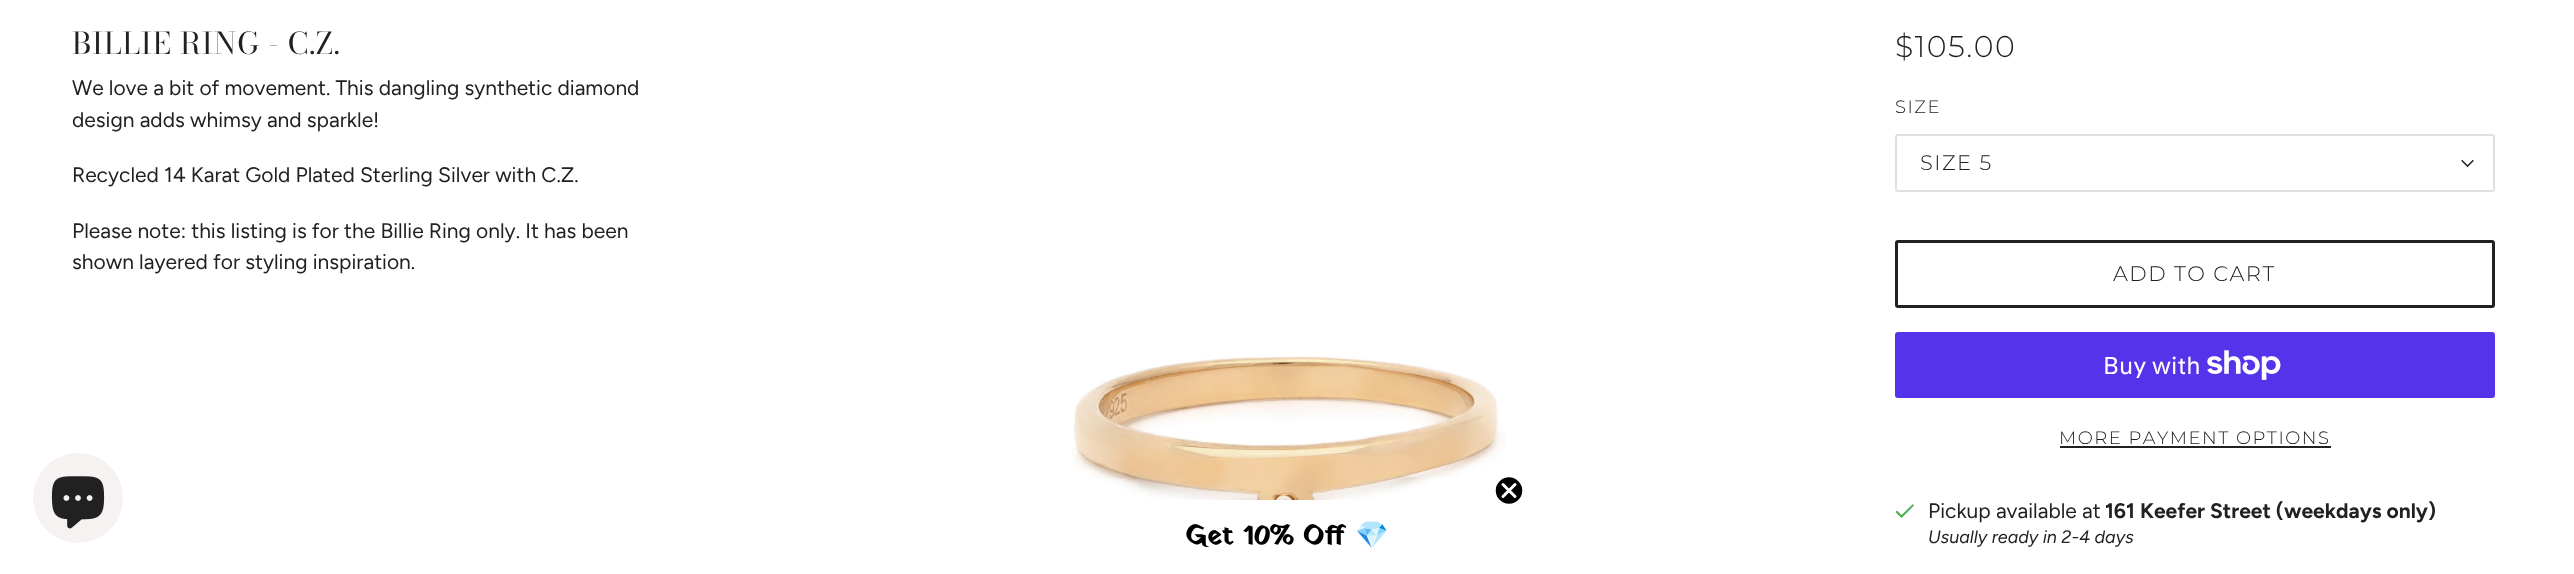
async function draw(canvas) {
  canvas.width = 2574;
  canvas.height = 574;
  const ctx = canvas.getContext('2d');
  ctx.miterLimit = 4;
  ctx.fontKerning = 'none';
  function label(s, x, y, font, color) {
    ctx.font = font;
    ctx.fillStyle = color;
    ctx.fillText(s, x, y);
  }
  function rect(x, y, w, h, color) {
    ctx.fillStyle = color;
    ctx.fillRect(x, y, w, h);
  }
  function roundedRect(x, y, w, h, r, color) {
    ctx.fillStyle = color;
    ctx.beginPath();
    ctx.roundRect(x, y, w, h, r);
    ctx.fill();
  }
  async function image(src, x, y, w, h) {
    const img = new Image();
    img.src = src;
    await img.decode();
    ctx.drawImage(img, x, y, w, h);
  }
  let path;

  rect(0, 0, 2574, 574, '#fff');
  ctx.letterSpacing = '0.75px';
  label('BILLIE RING - C.Z.', 72, 54, '30px Bodoni Moda', '#212121');
  ctx.letterSpacing = '1.5px';
  label('$105.00', 1895, 57, '300 30px Montserrat', '#212121');
  label('SIZE', 1895, 113, '300 18px Montserrat', '#212121');
  ctx.beginPath();
  ctx.roundRect(1896, 135, 598, 56, 2);
  ctx.strokeStyle = '#e0e0e0';
  ctx.lineWidth = 2;
  ctx.stroke();
  label('SIZE 5', 1920, 170, '300 21px Montserrat', '#212121');
  await image('assets/img1.png', 2461, 159, 13, 9);
  ctx.beginPath();
  ctx.roundRect(1896.5, 241.5, 597, 65, 1.5);
  ctx.strokeStyle = '#212121';
  ctx.lineWidth = 3;
  ctx.stroke();
  label('ADD TO CART', 2113, 281, '300 21px Montserrat', '#212121');
  roundedRect(1895, 332, 600, 66, 3, '#5433eb');
  ctx.letterSpacing = '0px';
  label('Buy with', 2103, 374, '24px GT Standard', '#fff');
  await image('assets/img2.png', 2207, 350, 74, 30);
  ctx.letterSpacing = '1.5px';
  label('MORE PAYMENT OPTIONS', 2059, 444, '300 18px Montserrat', '#212121');
  rect(2060, 446, 271, 2, '#212121');
  ctx.fillStyle = '#4caf50';
  path = new Path2D('M1901.5 515L1897 510.5L1895.5 512L1901.5 518L1914 505.5L1913 504Z');
  ctx.fill(path);
  ctx.letterSpacing = '0px';
  label('Pickup available at', 1928, 518, '21px Figtree', '#212121');
  label('161 Keefer Street (weekdays only)', 2105, 518, 'bold 21px Figtree', '#212121');
  label('Usually ready in 2-4 days', 1928, 543, 'italic 18px Figtree', '#212121');
  label('We love a bit of movement. This dangling synthetic diamond', 72, 95, '21px Figtree', '#212121');
  label('design adds whimsy and sparkle!', 72, 127, '21px Figtree', '#212121');
  label('Recycled 14 Karat Gold Plated Sterling Silver with C.Z.', 72, 182, '21px Figtree', '#212121');
  label('Please note: this listing is for the Billie Ring only. It has been', 72, 238, '21px Figtree', '#212121');
  label('shown layered for styling inspiration.', 72, 269, '21px Figtree', '#212121');
  await image('assets/img3.png', 1072, 356, 434, 218);
  ctx.fillStyle = '#f7f2f2';
  ctx.beginPath();
  ctx.arc(78, 498, 45, 0, 2 * Math.PI);
  ctx.fill();
  await image('assets/img4.png', 51, 476, 54, 53);
  ctx.fillStyle = '#fff';
  path = new Path2D('M1089 500H1485C1493.5 500 1500 506.5 1500 515V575H1074V515C1074 506.5 1080.5 500 1089 500Z');
  ctx.fill(path);
  ctx.fillStyle = '#000';
  ctx.beginPath();
  ctx.arc(1509, 490.5, 14, 0, 2 * Math.PI);
  ctx.fill();
  ctx.strokeStyle = '#fff';
  ctx.lineWidth = 1.5;
  ctx.stroke();
  path = new Path2D('M1503 484.5L1515 496.5M1503 496.5L1515 484.5Z');
  ctx.lineWidth = 3;
  ctx.lineCap = 'round';
  ctx.lineJoin = 'round';
  ctx.stroke(path);
  label('Get 10% Off', 1185, 544, 'bold 27px Yatra One', '#000');
  label('💎', 1355, 544, 'bold 27px Noto Color Emoji', '#000');
}

draw(document.querySelector('canvas'));
